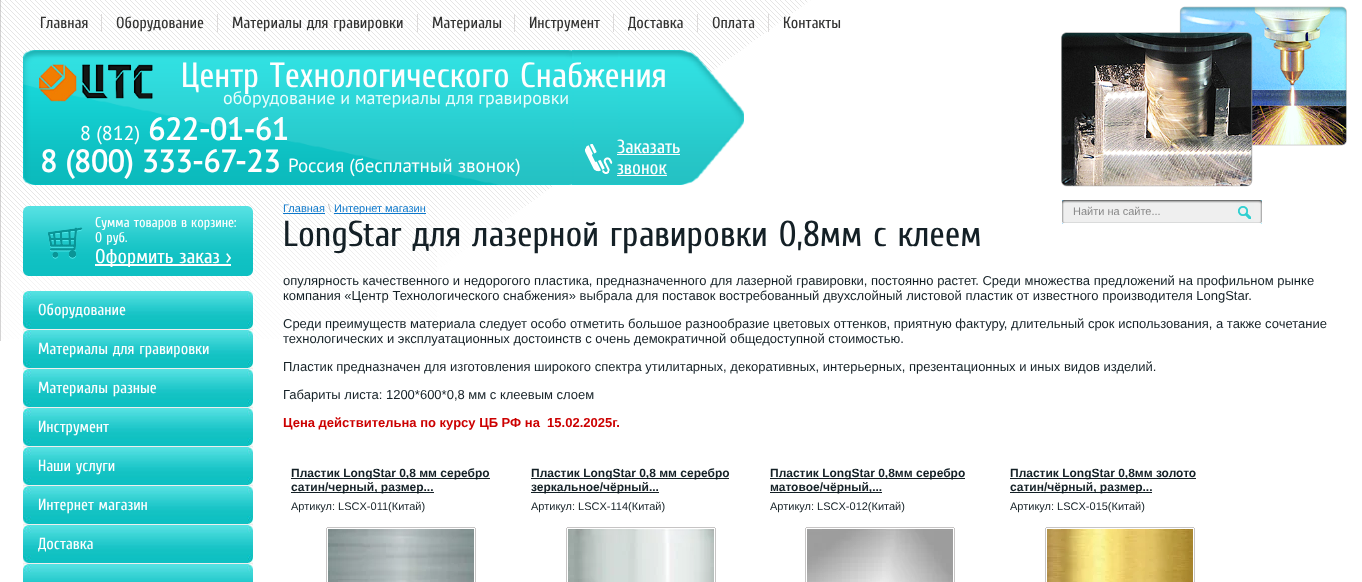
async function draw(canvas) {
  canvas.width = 1362;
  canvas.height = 582;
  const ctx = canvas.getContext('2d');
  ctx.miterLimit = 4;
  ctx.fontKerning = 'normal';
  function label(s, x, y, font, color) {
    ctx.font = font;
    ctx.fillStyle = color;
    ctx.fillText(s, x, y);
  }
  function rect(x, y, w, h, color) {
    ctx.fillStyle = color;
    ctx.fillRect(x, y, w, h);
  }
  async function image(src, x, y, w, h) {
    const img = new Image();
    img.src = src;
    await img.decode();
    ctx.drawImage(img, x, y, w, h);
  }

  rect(0, 0, 1362, 582, '#fff');
  await image('assets/img1.png', 0, 0, 811, 341);
  await image('assets/img2.png', 1061, 6, 286, 181);
  label('Главная', 40, 28, '16px Cuprum', '#323231');
  rect(101, 14, 1, 18, '#dcdada');
  label('Оборудование', 116, 28, '16px Cuprum', '#323231');
  rect(217, 14, 1, 18, '#dcdada');
  label('Материалы для гравировки', 232, 28, '16px Cuprum', '#323231');
  rect(417, 14, 1, 18, '#dcdada');
  label('Материалы', 432, 28, '16px Cuprum', '#323231');
  rect(514, 14, 1, 18, '#dcdada');
  label('Инструмент', 529, 28, '16px Cuprum', '#323231');
  rect(613, 14, 1, 18, '#dcdada');
  label('Доставка', 628, 28, '16px Cuprum', '#323231');
  rect(697, 14, 1, 18, '#dcdada');
  label('Оплата', 712, 28, '16px Cuprum', '#323231');
  rect(768, 14, 1, 18, '#dcdada');
  label('Контакты', 783, 28, '16px Cuprum', '#323231');
  await image('assets/img3.png', 23, 50, 721, 135);
  await image('assets/img4.png', 39, 64, 114, 38);
  label('Центр Технологического Снабжения', 181, 87, '35px Cuprum', '#fffefe');
  label('оборудование и материалы для гравировки', 223, 104, '18px PT Sans', '#e9fdfd');
  label('8 (812)', 80, 140, '20px PT Sans', '#fffefe');
  label('622-01-61', 148, 140, 'bold 31px PT Sans', '#fffefe');
  await image('assets/img5.png', 585, 144, 28, 30);
  label('Заказать', 617, 153, '19px Cuprum', '#fffefe');
  rect(617, 154, 63, 1, '#fff');
  label('звонок', 617, 174, '19px Cuprum', '#fffefe');
  rect(617, 175, 50, 1, '#fff');
  label('8 (800) 333-67-23', 40, 172, 'bold 31px PT Sans', '#fffefe');
  label('Россия (бесплатный звонок)', 288, 172, '19px PT Sans', '#fffefe');
  await image('assets/img6.png', 1062, 200, 200, 24);
  label('Найти на сайте...', 1073, 215, '11px Liberation Sans', '#888');
  await image('assets/img7.png', 23, 206, 230, 70);
  label('Сумма товаров в корзине:', 95, 227, '14px Cuprum', '#fffefe');
  label('0 руб.', 95, 242, '14px Cuprum', '#fffefe');
  rect(95, 264, 136, 2, '#fff');
  label('Оформить заказ >', 95, 263, '20px Cuprum', '#fffefe');
  await image('assets/img8.png', 23, 291, 230, 38);
  rect(23, 329, 230, 1, '#f0eded');
  label('Оборудование', 38, 315, '16px Cuprum', '#fffefe');
  await image('assets/img8.png', 23, 330, 230, 38);
  rect(23, 368, 230, 1, '#f0eded');
  label('Материалы для гравировки', 38, 354, '16px Cuprum', '#fffefe');
  await image('assets/img8.png', 23, 369, 230, 38);
  rect(23, 407, 230, 1, '#f0eded');
  label('Материалы разные', 38, 393, '16px Cuprum', '#fffefe');
  await image('assets/img8.png', 23, 408, 230, 38);
  rect(23, 446, 230, 1, '#f0eded');
  label('Инструмент', 38, 432, '16px Cuprum', '#fffefe');
  await image('assets/img8.png', 23, 447, 230, 38);
  rect(23, 485, 230, 1, '#f0eded');
  label('Наши услуги', 38, 471, '16px Cuprum', '#fffefe');
  await image('assets/img8.png', 23, 486, 230, 38);
  rect(23, 524, 230, 1, '#f0eded');
  label('Интернет магазин', 38, 510, '16px Cuprum', '#fffefe');
  await image('assets/img8.png', 23, 525, 230, 38);
  rect(23, 563, 230, 1, '#f0eded');
  label('Доставка', 38, 549, '16px Cuprum', '#fffefe');
  await image('assets/img9.png', 23, 564, 230, 18);
  label('Главная', 283, 212, '11px Liberation Sans', '#0d78cb');
  rect(283, 213, 42, 1, '#0d78cb');
  label('\\', 328, 212, '11px Liberation Sans', '#bebebe');
  rect(334, 213, 92, 1, '#0d78cb');
  label('Интернет магазин', 334, 212, '11px Liberation Sans', '#0d78cb');
  label('LongStar для лазерной гравировки 0,8мм с клеем', 283, 246, '36px Cuprum', '#142026');
  label('опулярность качественного и недорогого пластика, предназначенного для лазерной гравировки, постоянно растет. Среди множества предложений на профильном рынке', 283, 285, '13px Liberation Sans', '#142026');
  label('компания «Центр Технологического снабжения» выбрала для поставок востребованный двухслойный листовой пластик от известного производителя LongStar.', 283, 300, '13px Liberation Sans', '#142026');
  label('Среди преимуществ материала следует особо отметить большое разнообразие цветовых оттенков, приятную фактуру, длительный срок использования, а также сочетание', 283, 328, '13px Liberation Sans', '#142026');
  label('технологических и эксплуатационных достоинств с очень демократичной общедоступной стоимостью.', 283, 343, '13px Liberation Sans', '#142026');
  label('Пластик предназначен для изготовления широкого спектра утилитарных, декоративных, интерьерных, презентационных и иных видов изделий.', 283, 371, '13px Liberation Sans', '#142026');
  label('Габариты листа: 1200*600*0,8 мм с клеевым слоем', 283, 399, '13px Liberation Sans', '#142026');
  label('Цена действительна по курсу ЦБ РФ на  15.02.2025г.', 283, 427, 'bold 13px Liberation Sans', '#c00');
  rect(291, 478, 199, 1, '#142026');
  label('Пластик LongStar 0,8 мм серебро', 291, 477, 'bold 12px Liberation Sans', '#142026');
  rect(291, 492, 143, 1, '#142026');
  label('сатин/черный, размер...', 291, 491, 'bold 12px Liberation Sans', '#142026');
  label('Артикул: LSCX-011(Китай)', 291, 510, '11px Liberation Sans', '#142026');
  await image('assets/img10.png', 326, 527, 150, 55);
  rect(531, 478, 198, 1, '#142026');
  label('Пластик LongStar 0,8 мм серебро', 531, 477, 'bold 12px Liberation Sans', '#142026');
  rect(531, 492, 128, 1, '#142026');
  label('зеркальное/чёрный...', 531, 491, 'bold 12px Liberation Sans', '#142026');
  label('Артикул: LSCX-114(Китай)', 531, 510, '11px Liberation Sans', '#142026');
  await image('assets/img11.png', 566, 527, 150, 55);
  rect(770, 478, 195, 1, '#142026');
  label('Пластик LongStar 0,8мм серебро', 770, 477, 'bold 12px Liberation Sans', '#142026');
  rect(770, 492, 112, 1, '#142026');
  label('матовое/чёрный,...', 770, 491, 'bold 12px Liberation Sans', '#142026');
  label('Артикул: LSCX-012(Китай)', 770, 510, '11px Liberation Sans', '#142026');
  await image('assets/img12.png', 805, 527, 150, 55);
  rect(1010, 478, 186, 1, '#142026');
  label('Пластик LongStar 0,8мм золото', 1010, 477, 'bold 12px Liberation Sans', '#142026');
  rect(1010, 492, 142, 1, '#142026');
  label('сатин/чёрный, размер...', 1010, 491, 'bold 12px Liberation Sans', '#142026');
  label('Артикул: LSCX-015(Китай)', 1010, 510, '11px Liberation Sans', '#142026');
  await image('assets/img13.png', 1045, 527, 150, 55);
}

draw(document.querySelector('canvas'));
